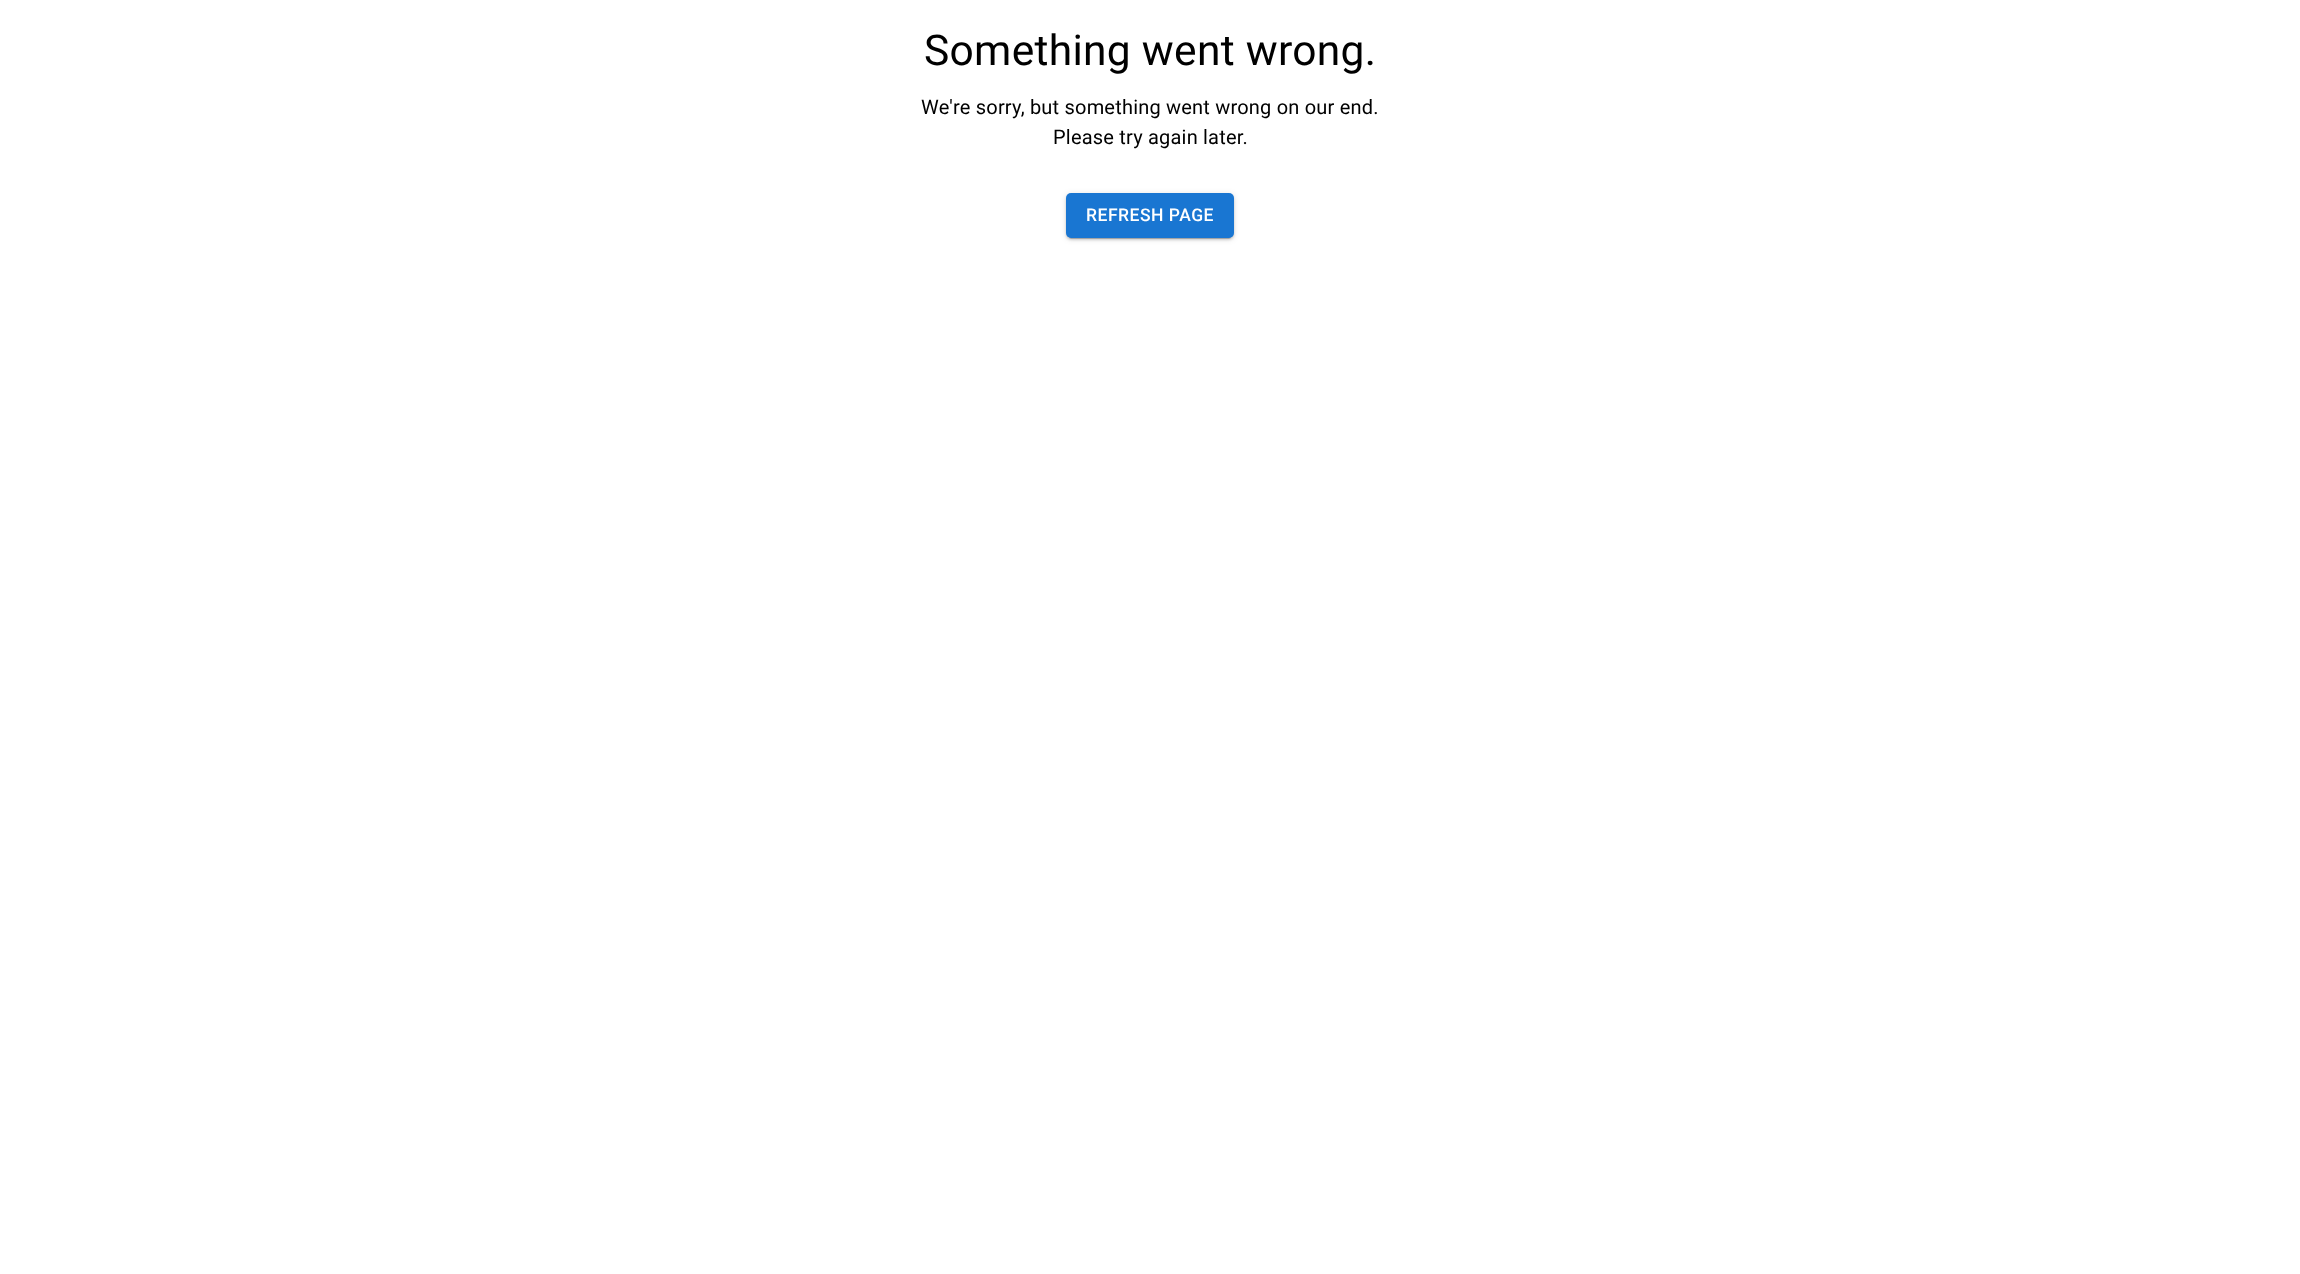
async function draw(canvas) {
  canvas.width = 2300;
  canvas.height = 1274;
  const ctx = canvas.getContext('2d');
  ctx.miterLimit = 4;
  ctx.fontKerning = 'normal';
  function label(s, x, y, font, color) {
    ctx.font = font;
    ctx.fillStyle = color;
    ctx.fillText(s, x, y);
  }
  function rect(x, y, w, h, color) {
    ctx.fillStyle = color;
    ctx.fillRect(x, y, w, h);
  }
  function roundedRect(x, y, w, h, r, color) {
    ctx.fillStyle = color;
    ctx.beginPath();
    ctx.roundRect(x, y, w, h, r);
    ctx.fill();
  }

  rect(0, 0, 2300, 1274, '#fff');
  ctx.letterSpacing = '0.3px';
  label('Something went wrong.', 924, 65, '42.5px Roboto', '#000');
  ctx.letterSpacing = '0.2px';
  label('We\'re sorry, but something went wrong on our end.', 921, 114, '20px Roboto', '#000');
  label('Please try again later.', 1053, 144, '20px Roboto', '#000');
  ctx.fillStyle = '#0000001f';
  ctx.filter = 'blur(3px)';
  ctx.beginPath();
  ctx.roundRect(1066, 194, 168, 45, 5);
  ctx.fill();
  ctx.filter = 'none';
  ctx.fillStyle = '#00000024';
  ctx.filter = 'blur(1px)';
  ctx.beginPath();
  ctx.roundRect(1066, 195, 168, 45, 5);
  ctx.fill();
  ctx.filter = 'none';
  ctx.fillStyle = '#00000033';
  ctx.filter = 'blur(0.5px)';
  ctx.beginPath();
  ctx.roundRect(1069, 199, 162, 40, 2.5);
  ctx.fill();
  ctx.filter = 'none';
  roundedRect(1066, 193, 168, 45, 5, '#1976d2');
  ctx.letterSpacing = '0.5px';
  label('REFRESH PAGE', 1086, 221, '500 17.5px Roboto', '#fff');
}

draw(document.querySelector('canvas'));
